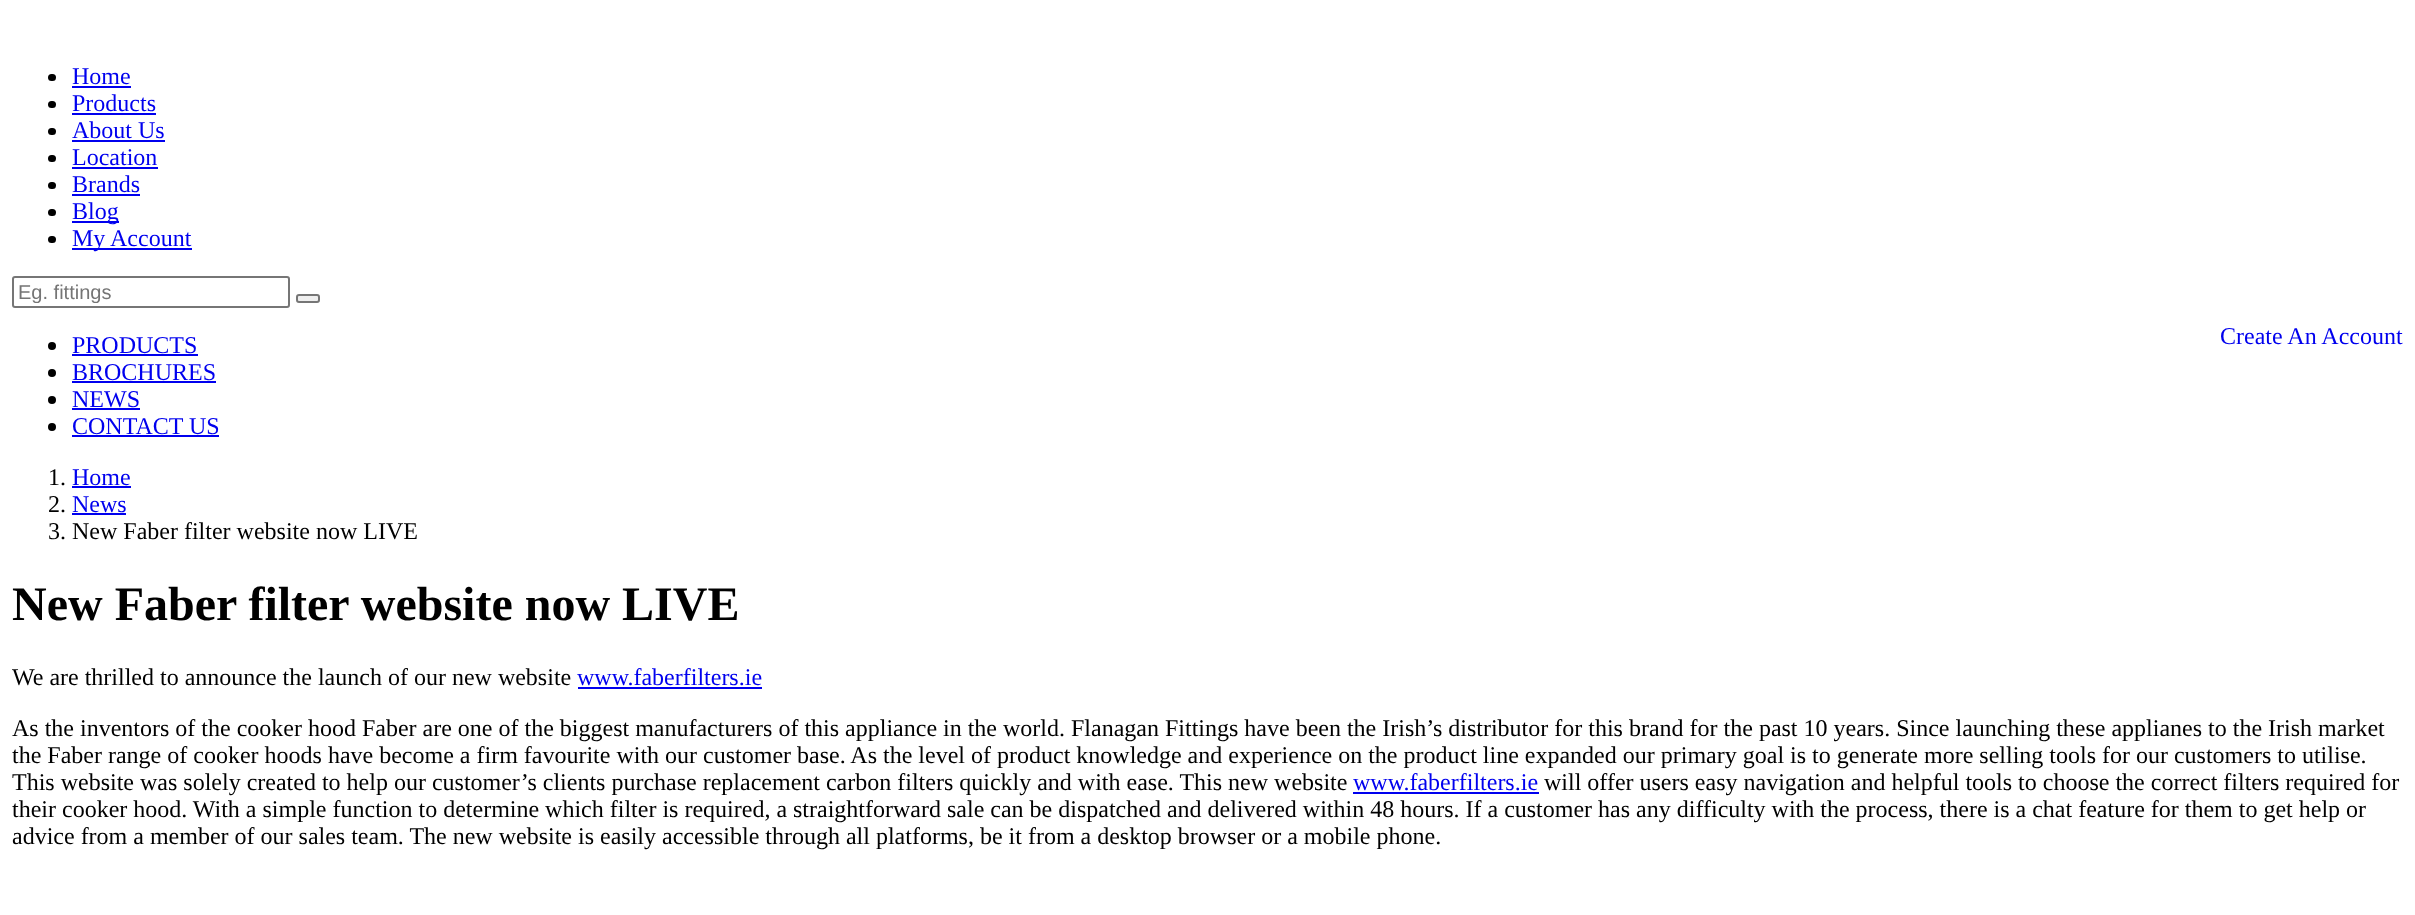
async function draw(canvas) {
  canvas.width = 2415;
  canvas.height = 915;
  const ctx = canvas.getContext('2d');
  ctx.miterLimit = 4;
  ctx.fontKerning = 'normal';
  function label(s, x, y, font, color) {
    ctx.font = font;
    ctx.fillStyle = color;
    ctx.fillText(s, x, y);
  }
  function rect(x, y, w, h, color) {
    ctx.fillStyle = color;
    ctx.fillRect(x, y, w, h);
  }
  function roundedRect(x, y, w, h, r, color) {
    ctx.fillStyle = color;
    ctx.beginPath();
    ctx.roundRect(x, y, w, h, r);
    ctx.fill();
  }

  rect(0, 0, 2415, 915, '#fff');
  roundedRect(48, 74, 8, 7, 3.5, '#000');
  label('Home', 72, 84, '24px Liberation Serif', '#00e');
  rect(72, 86, 59, 2, '#00e');
  roundedRect(48, 101, 8, 7, 3.5, '#000');
  label('Products', 72, 111, '24px Liberation Serif', '#00e');
  rect(72, 113, 84, 2, '#00e');
  roundedRect(48, 128, 8, 7, 3.5, '#000');
  label('About Us', 72, 138, '24px Liberation Serif', '#00e');
  rect(72, 140, 93, 2, '#00e');
  roundedRect(48, 155, 8, 7, 3.5, '#000');
  label('Location', 72, 165, '24px Liberation Serif', '#00e');
  rect(72, 167, 86, 2, '#00e');
  roundedRect(48, 182, 8, 7, 3.5, '#000');
  label('Brands', 72, 192, '24px Liberation Serif', '#00e');
  rect(72, 194, 68, 2, '#00e');
  roundedRect(48, 209, 8, 7, 3.5, '#000');
  rect(72, 221, 47, 2, '#00e');
  label('Blog', 72, 219, '24px Liberation Serif', '#00e');
  roundedRect(48, 236, 8, 7, 3.5, '#000');
  rect(72, 248, 120, 2, '#00e');
  label('My Account', 72, 246, '24px Liberation Serif', '#00e');
  ctx.beginPath();
  ctx.roundRect(13, 277, 276, 30, 2);
  ctx.strokeStyle = '#767676';
  ctx.lineWidth = 2;
  ctx.stroke();
  ctx.save();
  ctx.beginPath();
  ctx.rect(18, 281, 266, 22);
  ctx.clip();
  label('Eg. fittings', 18, 299, '20px Liberation Sans', '#757575');
  ctx.restore();
  ctx.fillStyle = '#efefef';
  ctx.beginPath();
  ctx.roundRect(297, 295, 22, 7, 2);
  ctx.fill();
  ctx.stroke();
  label('Create An Account', 2220, 344, '24px Liberation Serif', '#00e');
  ctx.fillStyle = '#000';
  ctx.beginPath();
  ctx.arc(52, 346, 4, 0, 2 * Math.PI);
  ctx.fill();
  label('PRODUCTS', 72, 353, '24px Liberation Serif', '#00e');
  rect(72, 354, 126, 2, '#00e');
  ctx.fillStyle = '#000';
  ctx.beginPath();
  ctx.arc(52, 373, 4, 0, 2 * Math.PI);
  ctx.fill();
  label('BROCHURES', 72, 380, '24px Liberation Serif', '#00e');
  rect(72, 381, 144, 2, '#00e');
  ctx.fillStyle = '#000';
  ctx.beginPath();
  ctx.arc(52, 400, 4, 0, 2 * Math.PI);
  ctx.fill();
  label('NEWS', 72, 407, '24px Liberation Serif', '#00e');
  rect(72, 408, 68, 2, '#00e');
  ctx.fillStyle = '#000';
  ctx.beginPath();
  ctx.arc(52, 427, 4, 0, 2 * Math.PI);
  ctx.fill();
  label('CONTACT US', 72, 434, '24px Liberation Serif', '#00e');
  rect(72, 435, 147, 2, '#00e');
  label('1.', 48, 485, '24px Liberation Serif', '#000');
  label('Home', 72, 485, '24px Liberation Serif', '#00e');
  rect(72, 486, 59, 2, '#00e');
  label('2.', 48, 512, '24px Liberation Serif', '#000');
  label('News', 72, 512, '24px Liberation Serif', '#00e');
  rect(72, 513, 54, 2, '#00e');
  label('3. New Faber filter website now LIVE', 48, 539, '24px Liberation Serif', '#000');
  label('New Faber filter website now LIVE', 12, 620, 'bold 48px Liberation Serif', '#000');
  label('We are thrilled to announce the launch of our new website', 12, 685, '24px Liberation Serif', '#000');
  label('www.faberfilters.ie', 577, 685, '24px Liberation Serif', '#00e');
  rect(578, 687, 184, 2, '#00e');
  label('As the inventors of the cooker hood Faber are one of the biggest manufacturers of this appliance in the world. Flanagan Fittings have been the Irish’s distributor for this brand for the past 10 years. Since launching these applianes to the Irish market', 12, 736, '24px Liberation Serif', '#000');
  label('the Faber range of cooker hoods have become a firm favourite with our customer base. As the level of product knowledge and experience on the product line expanded our primary goal is to generate more selling tools for our customers to utilise.', 12, 763, '24px Liberation Serif', '#000');
  label('This website was solely created to help our customer’s clients purchase replacement carbon filters quickly and with ease. This new website', 12, 790, '24px Liberation Serif', '#000');
  label('www.faberfilters.ie', 1353, 790, '24px Liberation Serif', '#00e');
  rect(1353, 792, 186, 2, '#00e');
  label('will offer users easy navigation and helpful tools to choose the correct filters required for', 1544, 790, '24px Liberation Serif', '#000');
  label('their cooker hood. With a simple function to determine which filter is required, a straightforward sale can be dispatched and delivered within 48 hours. If a customer has any difficulty with the process, there is a chat feature for them to get help or', 12, 817, '24px Liberation Serif', '#000');
  label('advice from a member of our sales team. The new website is easily accessible through all platforms, be it from a desktop browser or a mobile phone.', 12, 844, '24px Liberation Serif', '#000');
}

draw(document.querySelector('canvas'));
